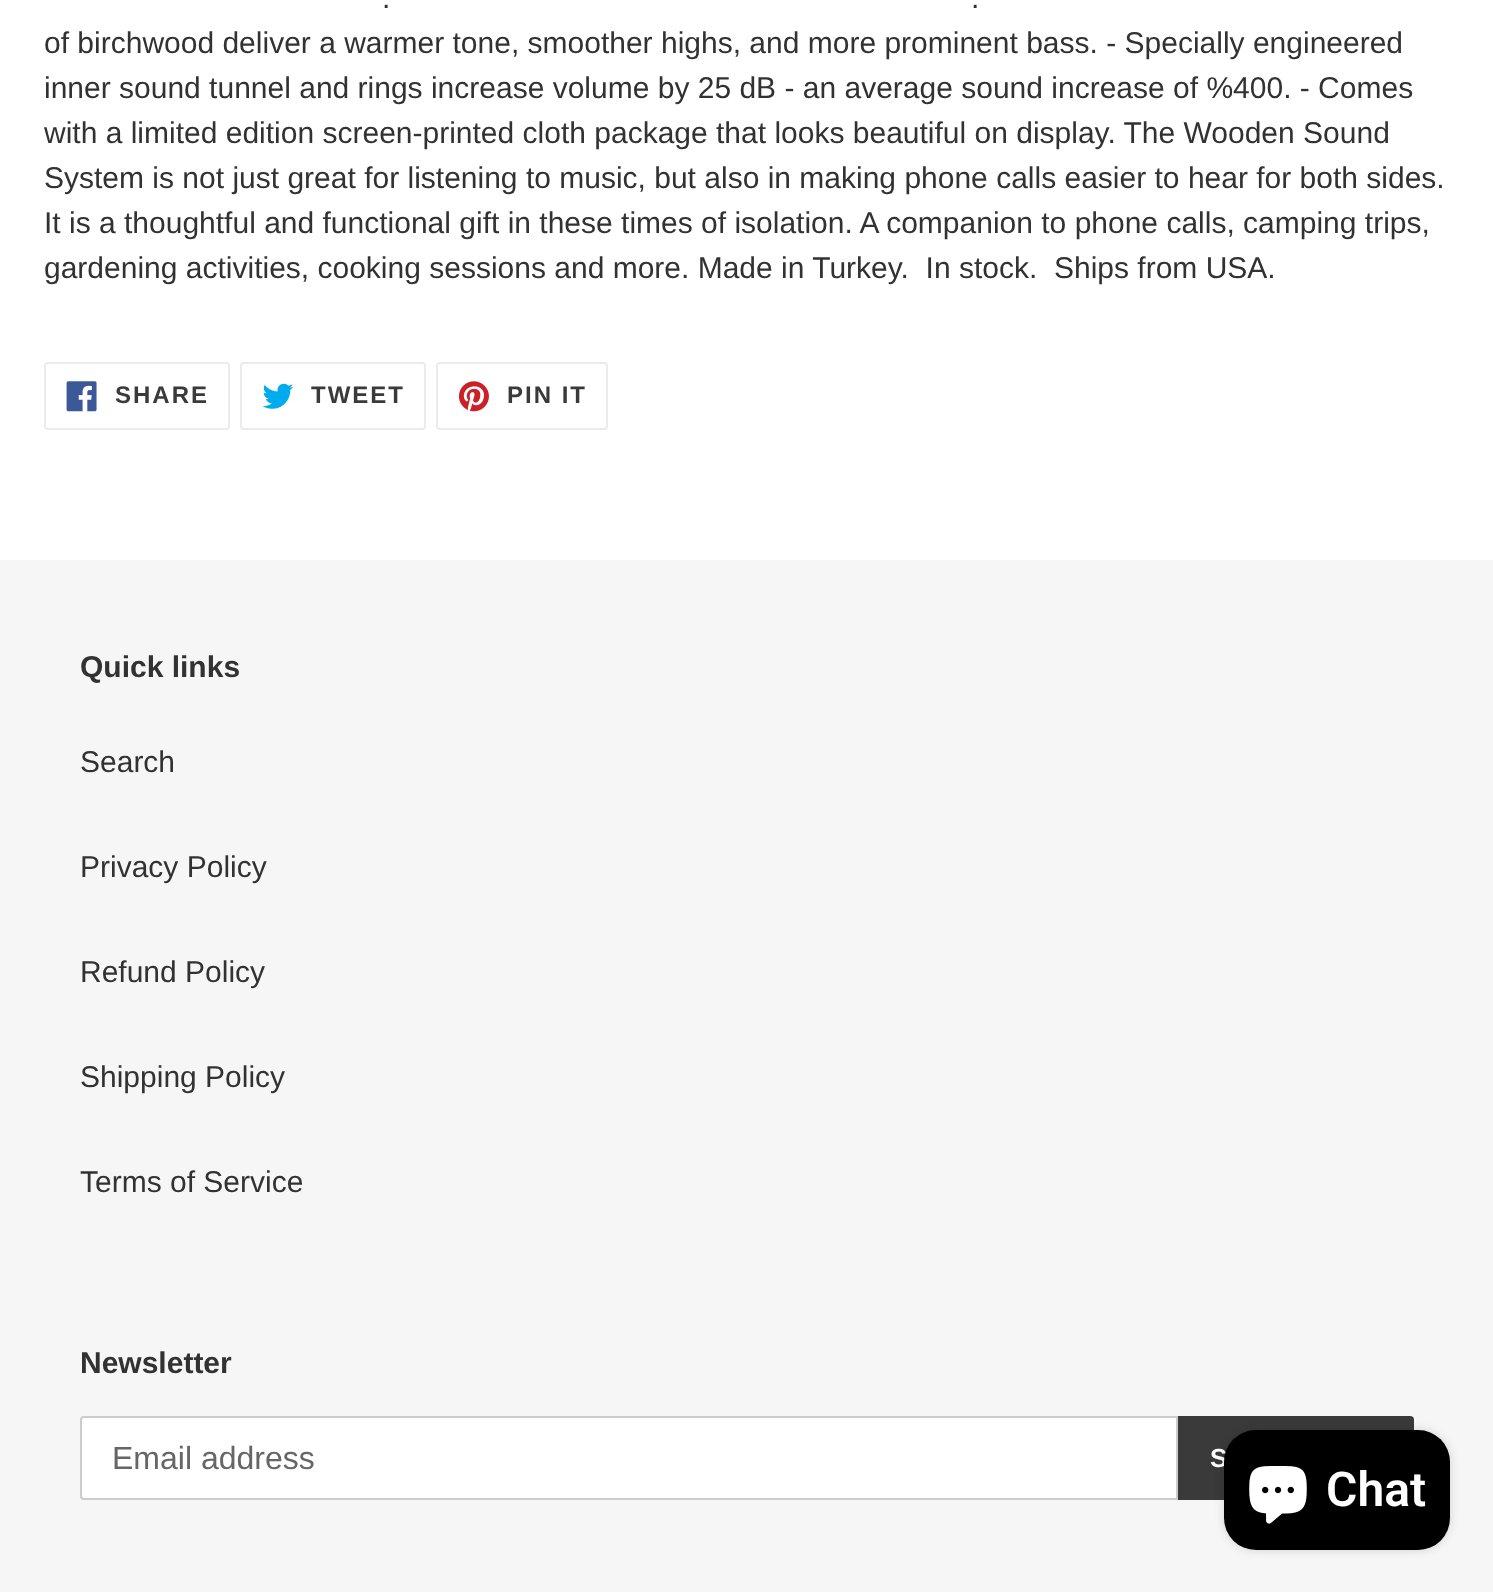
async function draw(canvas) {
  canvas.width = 1493;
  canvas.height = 1592;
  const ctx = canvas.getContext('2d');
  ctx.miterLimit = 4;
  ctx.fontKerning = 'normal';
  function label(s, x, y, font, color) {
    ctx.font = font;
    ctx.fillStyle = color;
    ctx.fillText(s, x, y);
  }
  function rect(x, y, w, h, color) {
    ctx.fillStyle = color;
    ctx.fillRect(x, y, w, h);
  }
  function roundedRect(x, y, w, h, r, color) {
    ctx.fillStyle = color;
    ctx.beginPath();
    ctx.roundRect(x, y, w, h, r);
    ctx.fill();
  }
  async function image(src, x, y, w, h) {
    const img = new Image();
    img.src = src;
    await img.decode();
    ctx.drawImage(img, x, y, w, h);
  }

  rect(0, 0, 1493, 1592, '#fff');
  label('.', 382, 8, '30px Liberation Sans', '#333232');
  label('.', 971, 8, '30px Liberation Sans', '#333232');
  label('of birchwood deliver a warmer tone, smoother highs, and more prominent bass. - Specially engineered', 44, 53, '30px Liberation Sans', '#333232');
  label('inner sound tunnel and rings increase volume by 25 dB - an average sound increase of %400. - Comes', 44, 98, '30px Liberation Sans', '#333232');
  label('with a limited edition screen-printed cloth package that looks beautiful on display. The Wooden Sound', 44, 143, '30px Liberation Sans', '#333232');
  label('System is not just great for listening to music, but also in making phone calls easier to hear for both sides.', 44, 188, '30px Liberation Sans', '#333232');
  label('It is a thoughtful and functional gift in these times of isolation. A companion to phone calls, camping trips,', 44, 233, '30px Liberation Sans', '#333232');
  label('gardening activities, cooking sessions and more. Made in Turkey.  In stock.  Ships from USA.', 44, 278, '30px Liberation Sans', '#333232');
  ctx.beginPath();
  ctx.roundRect(45, 363, 184, 66, 3);
  ctx.strokeStyle = '#ebebeb';
  ctx.lineWidth = 2;
  ctx.stroke();
  await image('assets/img1.png', 66, 381, 31, 31);
  ctx.letterSpacing = '2px';
  label('SHARE', 115, 403, 'bold 24px Liberation Sans', '#3a3a3a');
  ctx.beginPath();
  ctx.roundRect(241, 363, 184, 66, 3);
  ctx.stroke();
  await image('assets/img2.png', 262, 383, 32, 26);
  label('TWEET', 311, 403, 'bold 24px Liberation Sans', '#3a3a3a');
  ctx.beginPath();
  ctx.roundRect(437, 363, 170, 66, 3);
  ctx.stroke();
  await image('assets/img3.png', 458, 381, 31, 31);
  label('PIN IT', 507, 403, 'bold 24px Liberation Sans', '#3a3a3a');
  rect(0, 560, 1493, 1032, '#f6f6f6');
  ctx.letterSpacing = '0px';
  label('Quick links', 80, 677, 'bold 30px Liberation Sans', '#333232');
  label('Search', 80, 772, '30px Liberation Sans', '#333232');
  label('Privacy Policy', 80, 877, '30px Liberation Sans', '#333232');
  label('Refund Policy', 80, 982, '30px Liberation Sans', '#333232');
  label('Shipping Policy', 80, 1087, '30px Liberation Sans', '#333232');
  label('Terms of Service', 80, 1192, '30px Liberation Sans', '#333232');
  label('Newsletter', 80, 1373, 'bold 30px Liberation Sans', '#333232');
  ctx.fillStyle = '#fff';
  ctx.beginPath();
  ctx.roundRect(81, 1417, 1096, 82, [3, 0, 0, 3]);
  ctx.fill();
  ctx.strokeStyle = '#ccc';
  ctx.stroke();
  label('Email address', 112, 1469, '32px Liberation Sans', '#666');
  ctx.fillStyle = '#3a3a3a';
  ctx.beginPath();
  ctx.roundRect(1178, 1416, 236, 84, [0, 4, 4, 0]);
  ctx.fill();
  ctx.letterSpacing = '2px';
  label('S', 1210, 1467, 'bold 26px Liberation Sans', '#fff');
  ctx.fillStyle = '#00000026';
  ctx.filter = 'blur(5px)';
  ctx.beginPath();
  ctx.roundRect(1224, 1430, 226, 120, 32);
  ctx.fill();
  ctx.filter = 'none';
  roundedRect(1224, 1430, 226, 120, 32, '#000');
  await image('assets/img4.png', 1249, 1466, 58, 58);
  ctx.letterSpacing = '0px';
  label('Chat', 1326, 1506, '600 48px Roboto', '#fff');
}

draw(document.querySelector('canvas'));
